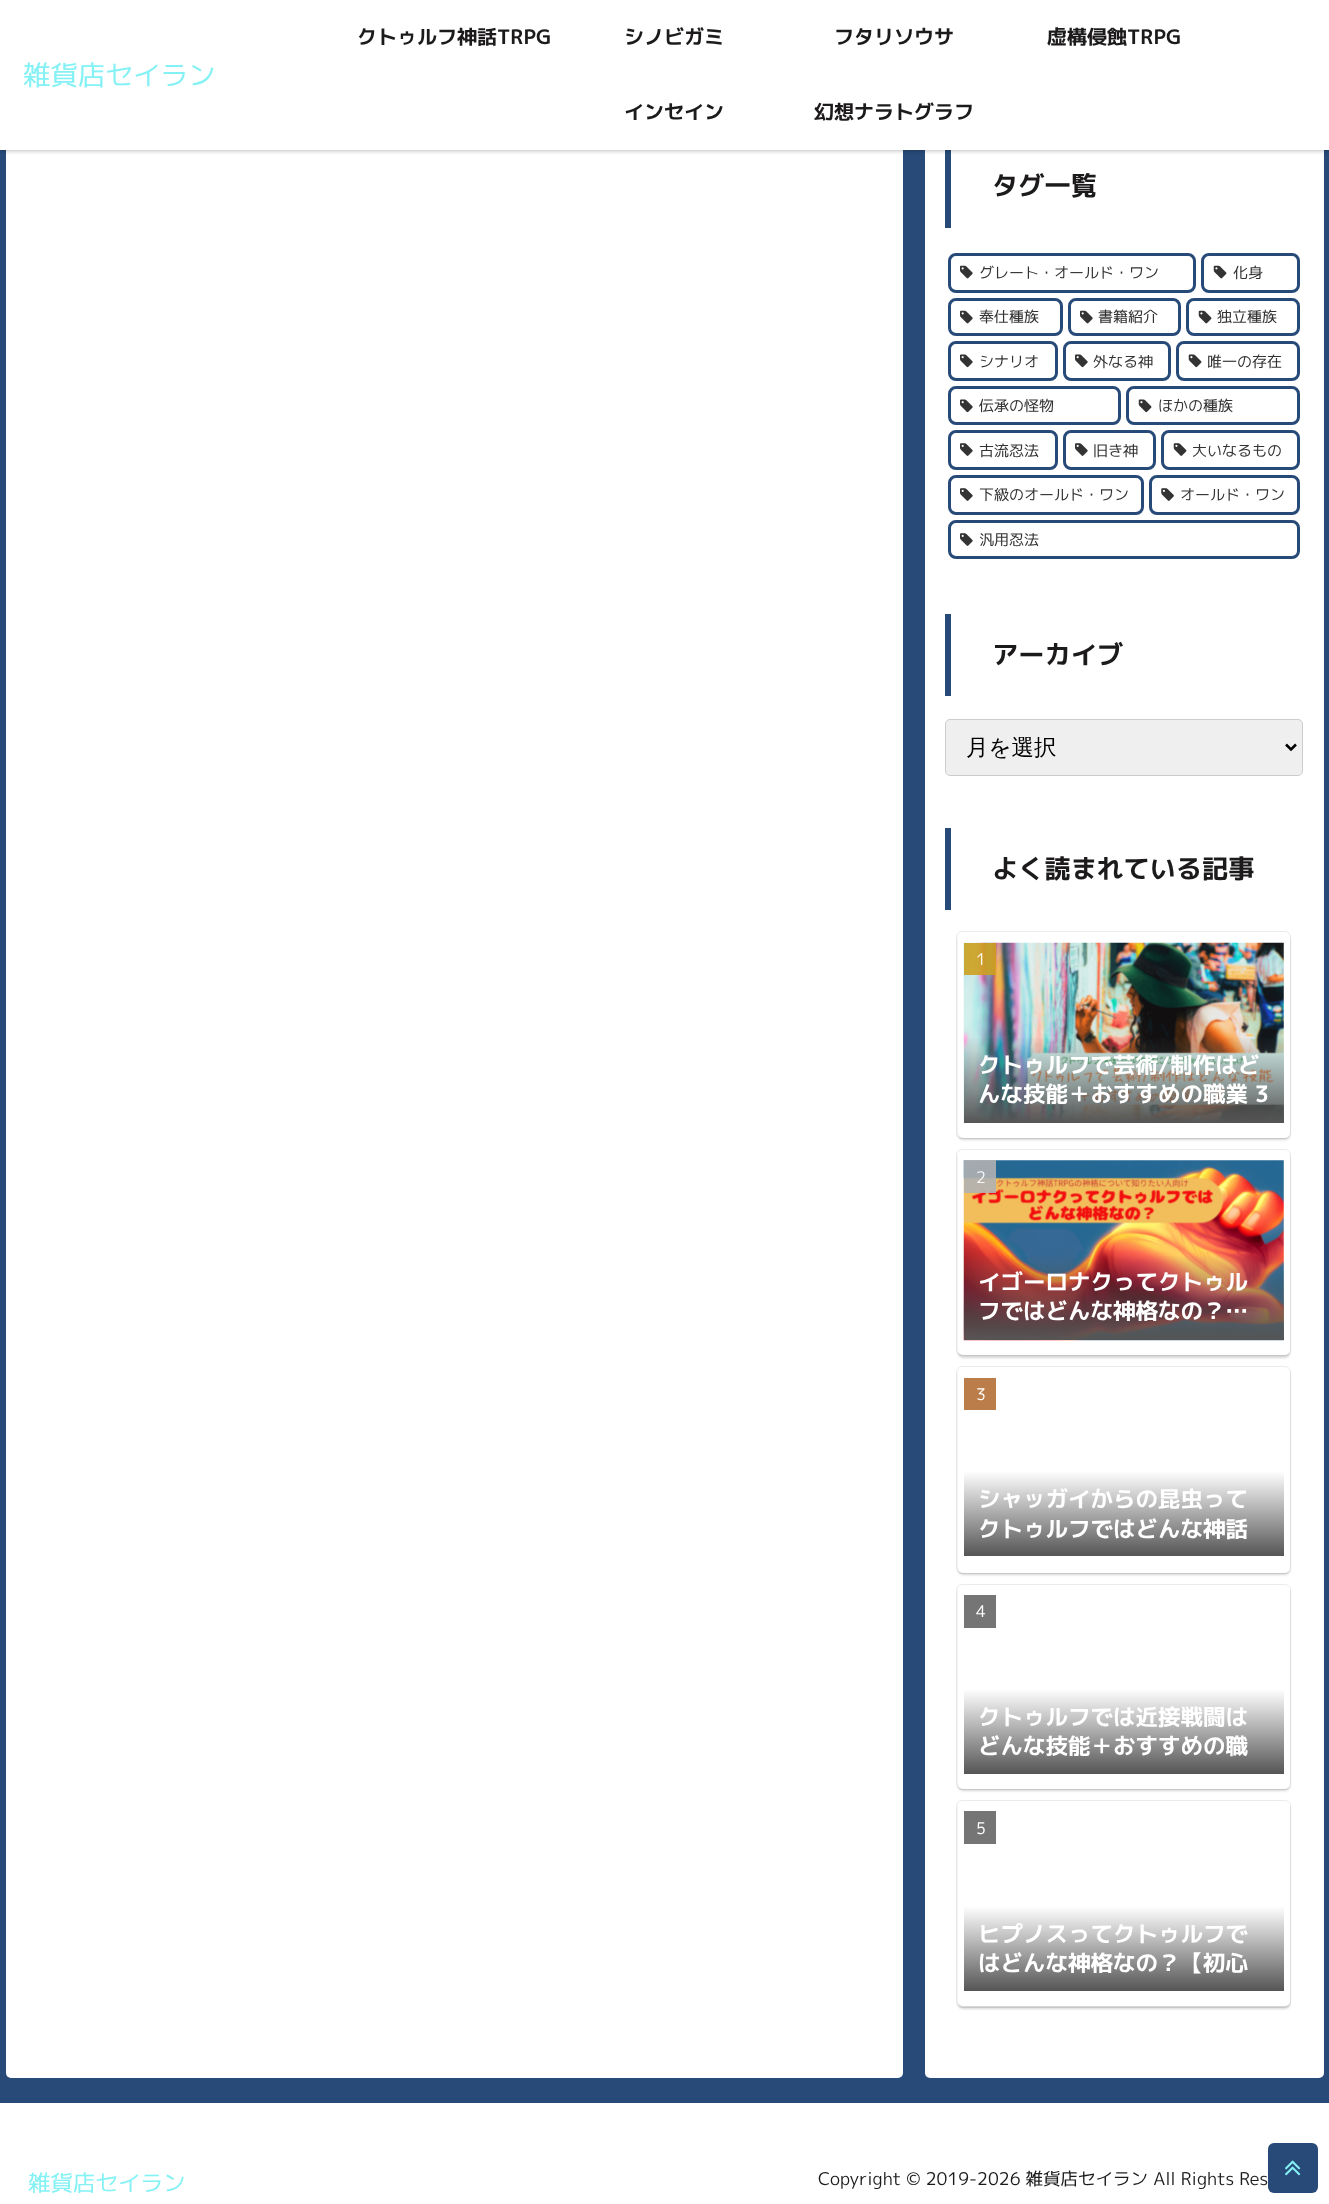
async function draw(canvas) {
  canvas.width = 1329;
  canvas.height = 2204;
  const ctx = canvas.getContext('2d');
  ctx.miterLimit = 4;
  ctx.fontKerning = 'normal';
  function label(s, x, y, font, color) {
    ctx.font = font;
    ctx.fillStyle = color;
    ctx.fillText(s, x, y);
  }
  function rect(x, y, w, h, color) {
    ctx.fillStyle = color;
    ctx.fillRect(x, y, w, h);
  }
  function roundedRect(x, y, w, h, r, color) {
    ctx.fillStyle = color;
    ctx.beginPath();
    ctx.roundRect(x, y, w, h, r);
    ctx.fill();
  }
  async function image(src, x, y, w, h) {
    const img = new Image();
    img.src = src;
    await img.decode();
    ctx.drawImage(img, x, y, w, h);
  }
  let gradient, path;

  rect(0, 0, 1329, 2204, '#274a78');
  roundedRect(6, -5, 897, 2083, 5, '#fff');
  roundedRect(925, -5, 399, 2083, 5, '#fff');
  rect(945, 145, 6, 83, '#274a78');
  ctx.fillStyle = '#00000040';
  ctx.filter = 'blur(2px)';
  ctx.beginPath();
  ctx.rect(0, 1, 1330, 150);
  ctx.fill();
  ctx.filter = 'none';
  rect(0, 0, 1329, 150, '#fff');
  label('雑貨店セイラン', 23, 85, '27.5px "M PLUS 1p"', '#84f1f4');
  label('クトゥルフ神話TRPG', 357, 44, 'bold 20px "M PLUS 1p"', '#1c1a1a');
  label('シノビガミ', 624, 44, 'bold 20px "M PLUS 1p"', '#1c1a1a');
  label('フタリソウサ', 834, 44, 'bold 20px "M PLUS 1p"', '#1c1a1a');
  label('虚構侵蝕TRPG', 1047, 44, 'bold 20px "M PLUS 1p"', '#1c1a1a');
  label('インセイン', 624, 119, 'bold 20px "M PLUS 1p"', '#1c1a1a');
  label('幻想ナラトグラフ', 814, 119, 'bold 20px "M PLUS 1p"', '#1c1a1a');
  label('タグ一覧', 992, 195, 'bold 26.25px "M PLUS 1p"', '#1c1a1a');
  ctx.beginPath();
  ctx.roundRect(949.5, 254.5, 245, 37, 6.5);
  ctx.strokeStyle = '#274a78';
  ctx.lineWidth = 3;
  ctx.stroke();
  await image('assets/img1.png', 960, 265, 13, 14);
  label('グレート・オールド・ワン', 979, 278, '15px "M PLUS 1p"', '#333');
  ctx.beginPath();
  ctx.roundRect(1202.5, 254.5, 96, 37, 6.5);
  ctx.stroke();
  await image('assets/img2.png', 1213, 265, 14, 14);
  label('化身', 1233, 278, '15px "M PLUS 1p"', '#333');
  ctx.beginPath();
  ctx.roundRect(949.5, 299.5, 112, 35, 6.5);
  ctx.stroke();
  await image('assets/img1.png', 960, 310, 13, 14);
  label('奉仕種族', 979, 322, '15px "M PLUS 1p"', '#333');
  ctx.beginPath();
  ctx.roundRect(1069.5, 299.5, 110, 35, 6.5);
  ctx.stroke();
  await image('assets/img1.png', 1080, 310, 13, 14);
  label('書籍紹介', 1098, 322, '15px "M PLUS 1p"', '#333');
  ctx.beginPath();
  ctx.roundRect(1187.5, 299.5, 111, 35, 6.5);
  ctx.stroke();
  await image('assets/img2.png', 1198, 310, 14, 14);
  label('独立種族', 1217, 322, '15px "M PLUS 1p"', '#333');
  ctx.beginPath();
  ctx.roundRect(949.5, 342.5, 107, 37, 6.5);
  ctx.stroke();
  await image('assets/img3.png', 960, 354, 13, 14);
  label('シナリオ', 979, 367, '15px "M PLUS 1p"', '#333');
  ctx.beginPath();
  ctx.roundRect(1064.5, 342.5, 105, 37, 6.5);
  ctx.stroke();
  await image('assets/img3.png', 1075, 354, 13, 14);
  label('外なる神', 1093, 367, '15px "M PLUS 1p"', '#333');
  ctx.beginPath();
  ctx.roundRect(1177.5, 342.5, 121, 37, 6.5);
  ctx.stroke();
  await image('assets/img4.png', 1188, 354, 14, 14);
  label('唯一の存在', 1207, 367, '15px "M PLUS 1p"', '#333');
  ctx.beginPath();
  ctx.roundRect(949.5, 387.5, 170, 36, 6.5);
  ctx.stroke();
  await image('assets/img3.png', 960, 399, 13, 14);
  label('伝承の怪物', 979, 411, '15px "M PLUS 1p"', '#333');
  ctx.beginPath();
  ctx.roundRect(1127.5, 387.5, 171, 36, 6.5);
  ctx.stroke();
  await image('assets/img4.png', 1138, 399, 14, 14);
  label('ほかの種族', 1158, 411, '15px "M PLUS 1p"', '#333');
  ctx.beginPath();
  ctx.roundRect(949.5, 431.5, 107, 37, 6.5);
  ctx.stroke();
  await image('assets/img5.png', 960, 443, 13, 13);
  label('古流忍法', 979, 456, '15px "M PLUS 1p"', '#333');
  ctx.beginPath();
  ctx.roundRect(1064.5, 431.5, 90, 37, 6.5);
  ctx.stroke();
  await image('assets/img5.png', 1075, 443, 13, 13);
  label('旧き神', 1093, 456, '15px "M PLUS 1p"', '#333');
  ctx.beginPath();
  ctx.roundRect(1162.5, 431.5, 136, 37, 6.5);
  ctx.stroke();
  await image('assets/img6.png', 1173, 443, 14, 13);
  label('大いなるもの', 1192, 456, '15px "M PLUS 1p"', '#333');
  ctx.beginPath();
  ctx.roundRect(949.5, 476.5, 193, 37, 6.5);
  ctx.stroke();
  await image('assets/img5.png', 960, 488, 13, 13);
  label('下級のオールド・ワン', 979, 500, '15px "M PLUS 1p"', '#333');
  ctx.beginPath();
  ctx.roundRect(1150.5, 476.5, 148, 37, 6.5);
  ctx.stroke();
  await image('assets/img7.png', 1161, 488, 13, 13);
  label('オールド・ワン', 1180, 500, '15px "M PLUS 1p"', '#333');
  ctx.beginPath();
  ctx.roundRect(949.5, 521.5, 349, 36, 6.5);
  ctx.stroke();
  await image('assets/img5.png', 960, 533, 13, 13);
  label('汎用忍法', 979, 545, '15px "M PLUS 1p"', '#333');
  rect(945, 614, 6, 82, '#274a78');
  label('アーカイブ', 992, 664, 'bold 26.25px "M PLUS 1p"', '#1c1a1a');
  ctx.fillStyle = '#efefef';
  ctx.beginPath();
  ctx.roundRect(945.5, 719.5, 357, 56, 4.5);
  ctx.fill();
  ctx.strokeStyle = '#ccc';
  ctx.lineWidth = 1;
  ctx.stroke();
  path = new Path2D('M1286 744.5L1291 749.5L1296 744.5');
  ctx.strokeStyle = '#000';
  ctx.lineWidth = 2.5;
  ctx.stroke(path);
  label('月を選択', 966, 755, '500 22.5px WenQuanYi Zen Hei', '#000');
  rect(945, 828, 6, 82, '#274a78');
  label('よく読まれている記事', 992, 878, 'bold 26.25px "M PLUS 1p"', '#1c1a1a');
  ctx.beginPath();
  ctx.roundRect(956.5, 931.5, 334, 207, 5.5);
  ctx.strokeStyle = '#ebebeb';
  ctx.lineWidth = 1;
  ctx.stroke();
  ctx.fillStyle = '#00000029';
  ctx.filter = 'blur(1px)';
  ctx.beginPath();
  ctx.roundRect(958, 935, 332, 205, 5);
  ctx.fill();
  ctx.filter = 'none';
  roundedRect(958, 933, 332, 205, 5, '#fff');
  await image('assets/img8.png', 963, 942, 321, 181);
  rect(964, 943, 32, 32, '#cca11fe6');
  label('1', 976, 965, '16px "M PLUS 1p"', '#faf6ea');
  gradient = ctx.createLinearGradient(1124, 1036, 1124, 1123);
  gradient.addColorStop(0, '#55555500');
  gradient.addColorStop(1, '#555');
  ctx.fillStyle = gradient;
  ctx.fillRect(964, 1038, 320, 85);
  label('クトゥルフで芸術/制作はど', 978, 1073, 'bold 22.5px "M PLUS 1p"', '#fff');
  label('んな技能＋おすすめの職業 3', 978, 1102, 'bold 22.5px "M PLUS 1p"', '#fff');
  ctx.beginPath();
  ctx.roundRect(956.5, 1149.5, 334, 206, 5.5);
  ctx.stroke();
  ctx.fillStyle = '#00000029';
  ctx.filter = 'blur(1px)';
  ctx.beginPath();
  ctx.roundRect(958, 1153, 332, 205, 5);
  ctx.fill();
  ctx.filter = 'none';
  roundedRect(958, 1150, 332, 205, 5, '#fff');
  await image('assets/img9.png', 963, 1160, 321, 181);
  rect(964, 1160, 32, 33, '#b1b1b3e6');
  label('2', 976, 1183, '16px "M PLUS 1p"', '#f7f7f7');
  gradient = ctx.createLinearGradient(1124, 1254, 1124, 1340);
  gradient.addColorStop(0, '#55555500');
  gradient.addColorStop(1, '#555');
  ctx.fillStyle = gradient;
  ctx.fillRect(964, 1256, 320, 84);
  label('イゴーロナクってクトゥル', 978, 1290, 'bold 22.5px "M PLUS 1p"', '#fff');
  label('フではどんな神格なの？…', 978, 1319, 'bold 22.5px "M PLUS 1p"', '#fff');
  ctx.beginPath();
  ctx.roundRect(956.5, 1366.5, 334, 207, 5.5);
  ctx.stroke();
  ctx.fillStyle = '#00000029';
  ctx.filter = 'blur(1px)';
  ctx.beginPath();
  ctx.roundRect(958, 1370, 332, 205, 5);
  ctx.fill();
  ctx.filter = 'none';
  roundedRect(958, 1368, 332, 205, 5, '#fff');
  rect(964, 1378, 32, 32, '#bb7e4a');
  label('3', 976, 1400, '16px "M PLUS 1p"', '#fff');
  gradient = ctx.createLinearGradient(1124, 1471, 1124, 1556);
  gradient.addColorStop(0, '#fff');
  gradient.addColorStop(1, '#555');
  ctx.fillStyle = gradient;
  ctx.fillRect(964, 1472, 320, 84);
  label('シャッガイからの昆虫って', 978, 1507, 'bold 22.5px "M PLUS 1p"', '#fff');
  label('クトゥルフではどんな神話', 978, 1537, 'bold 22.5px "M PLUS 1p"', '#fff');
  ctx.beginPath();
  ctx.roundRect(956.5, 1584.5, 334, 205, 5.5);
  ctx.stroke();
  ctx.fillStyle = '#00000029';
  ctx.filter = 'blur(1px)';
  ctx.beginPath();
  ctx.roundRect(958, 1588, 332, 203, 5);
  ctx.fill();
  ctx.filter = 'none';
  roundedRect(958, 1585, 332, 204, 5, '#fff');
  rect(964, 1595, 32, 33, '#757575');
  label('4', 976, 1617, '16px "M PLUS 1p"', '#fff');
  gradient = ctx.createLinearGradient(1124, 1689, 1124, 1774);
  gradient.addColorStop(0, '#fff');
  gradient.addColorStop(1, '#555');
  ctx.fillStyle = gradient;
  ctx.fillRect(964, 1690, 320, 84);
  label('クトゥルフでは近接戦闘は', 978, 1725, 'bold 22.5px "M PLUS 1p"', '#fff');
  label('どんな技能＋おすすめの職', 978, 1754, 'bold 22.5px "M PLUS 1p"', '#fff');
  ctx.beginPath();
  ctx.roundRect(956.5, 1800.5, 334, 207, 5.5);
  ctx.stroke();
  ctx.fillStyle = '#00000029';
  ctx.filter = 'blur(1px)';
  ctx.beginPath();
  ctx.roundRect(958, 1804, 332, 205, 5);
  ctx.fill();
  ctx.filter = 'none';
  roundedRect(958, 1801, 332, 205, 5, '#fff');
  rect(964, 1811, 32, 33, '#757575');
  label('5', 976, 1834, '16px "M PLUS 1p"', '#fff');
  gradient = ctx.createLinearGradient(1124, 1906, 1124, 1991);
  gradient.addColorStop(0, '#fff');
  gradient.addColorStop(1, '#555');
  ctx.fillStyle = gradient;
  ctx.fillRect(964, 1907, 320, 84);
  label('ヒプノスってクトゥルフで', 978, 1942, 'bold 22.5px "M PLUS 1p"', '#fff');
  label('はどんな神格なの？【初心', 978, 1971, 'bold 22.5px "M PLUS 1p"', '#fff');
  rect(0, 2103, 1329, 101, '#fff');
  label('雑貨店セイラン', 28, 2191, '22.5px "M PLUS 1p"', '#84f1f4');
  label('Copyright © 2019-2026 雑貨店セイラン All Rights Res', 818, 2185, '17.5px "M PLUS 1p"', '#1c1a1a');
  roundedRect(1268, 2143, 50, 50, 6, '#274a78');
  await image('assets/img10.png', 1285, 2160, 16, 16);
}

draw(document.querySelector('canvas'));
